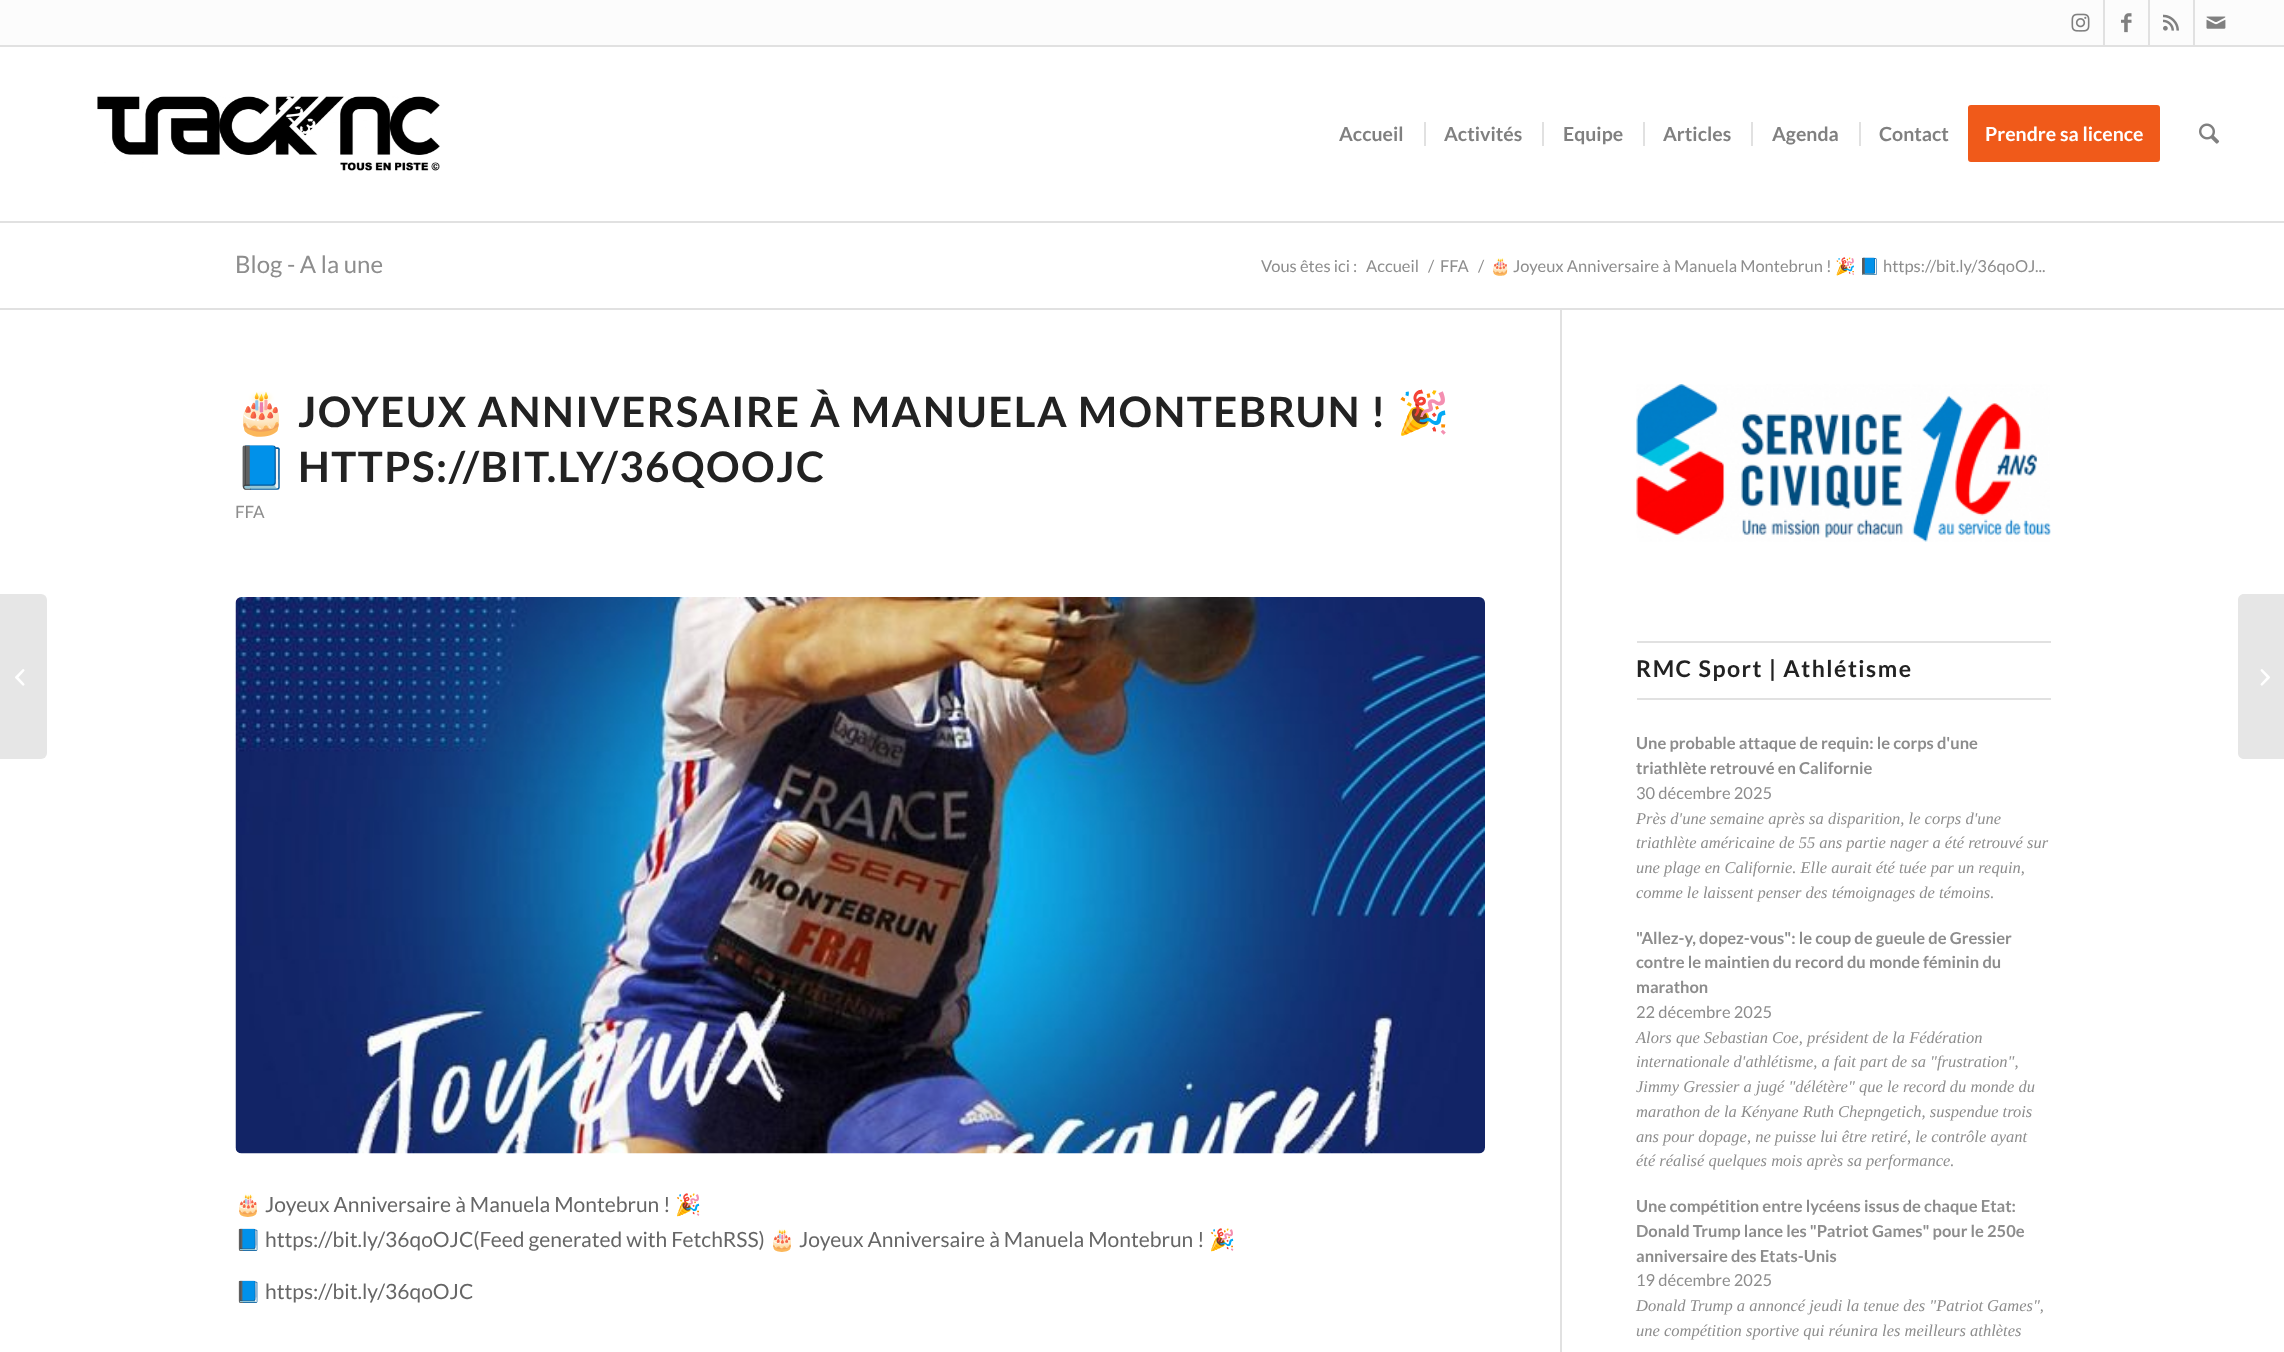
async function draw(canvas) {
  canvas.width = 2284;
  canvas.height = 1352;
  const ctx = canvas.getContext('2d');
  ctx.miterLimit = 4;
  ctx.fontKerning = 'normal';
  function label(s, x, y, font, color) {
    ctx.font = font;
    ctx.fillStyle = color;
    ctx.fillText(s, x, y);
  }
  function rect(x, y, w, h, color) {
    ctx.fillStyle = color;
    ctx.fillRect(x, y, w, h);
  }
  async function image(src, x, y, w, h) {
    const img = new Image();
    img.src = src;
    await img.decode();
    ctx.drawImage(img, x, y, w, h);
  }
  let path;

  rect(0, 0, 2284, 1352, '#fff');
  rect(0, 0, 2284, 45, '#fcfcfc');
  rect(0, 45, 2284, 2, '#e1e1e1');
  rect(2103, 0, 2, 45, '#e1e1e1');
  await image('assets/img1.png', 2071, 13, 19, 19);
  rect(2148, 0, 2, 45, '#e1e1e1');
  await image('assets/img2.png', 2121, 13, 11, 20);
  rect(2193, 0, 2, 45, '#e1e1e1');
  await image('assets/img3.png', 2163, 14, 16, 17);
  await image('assets/img4.png', 2206, 16, 20, 13);
  rect(0, 221, 2284, 2, '#e1e1e1');
  await image('assets/img5.png', 97, 96, 343, 75);
  label('Accueil', 1339, 141, 'bold 19.5px Lato', '#808080');
  label('Activités', 1444, 141, 'bold 19.5px Lato', '#808080');
  rect(1424, 122, 2, 24, '#e1e1e1');
  label('Equipe', 1563, 141, 'bold 19.5px Lato', '#808080');
  rect(1542, 122, 2, 24, '#e1e1e1');
  label('Articles', 1663, 141, 'bold 19.5px Lato', '#808080');
  rect(1643, 122, 2, 24, '#e1e1e1');
  label('Agenda', 1772, 141, 'bold 19.5px Lato', '#808080');
  rect(1751, 122, 2, 24, '#e1e1e1');
  label('Contact', 1879, 141, 'bold 19.5px Lato', '#808080');
  rect(1859, 122, 2, 24, '#e1e1e1');
  ctx.fillStyle = '#f05a1a';
  ctx.beginPath();
  ctx.roundRect(1969.5, 106.5, 189, 54, 1.5);
  ctx.fill();
  ctx.strokeStyle = '#f05a1a';
  ctx.lineWidth = 3;
  ctx.stroke();
  label('Prendre sa licence', 1985, 141, 'bold 19.5px Lato', '#fff');
  await image('assets/img6.png', 2199, 123, 21, 21);
  ctx.fillStyle = '#e6e6e6';
  ctx.beginPath();
  ctx.roundRect(0, 594, 47, 165, [0, 6, 6, 0]);
  ctx.fill();
  await image('assets/img7.png', 15, 669, 10, 17);
  label('Blog - A la une', 235, 273, '24px Lato', '#8d8d8d');
  label('Vous êtes ici :', 1261, 272, '16.5px Lato', '#8d8d8d');
  label('Accueil', 1366, 272, '16.5px Lato', '#8d8d8d');
  label('/', 1428, 272, '16.5px Lato', '#8d8d8d');
  label('FFA', 1440, 272, '16.5px Lato', '#8d8d8d');
  label('/', 1478, 272, '16.5px Lato', '#8d8d8d');
  label('🎂', 1490, 272, '16.5px Noto Color Emoji', '#8d8d8d');
  label('Joyeux Anniversaire à Manuela Montebrun !', 1513, 272, '16.5px Lato', '#8d8d8d');
  label('🎉', 1835, 272, '16.5px Noto Color Emoji', '#8d8d8d');
  label('📘', 1859, 272, '16.5px Noto Color Emoji', '#8d8d8d');
  label('https://bit.ly/36qoOJ...', 1883, 272, '16.5px Lato', '#8d8d8d');
  rect(0, 308, 2284, 2, '#e1e1e1');
  rect(1560, 309, 2, 1043, '#e1e1e1');
  ctx.save();
  ctx.beginPath();
  ctx.rect(236, 384, 1324, 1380);
  ctx.clip();
  ctx.letterSpacing = '1.5px';
  label('🎂', 235, 427, 'bold 42px Noto Color Emoji', '#222');
  ctx.restore();
  ctx.letterSpacing = '1.5px';
  label('JOYEUX ANNIVERSAIRE À MANUELA MONTEBRUN !', 298, 427, 'bold 42px Lato', '#222');
  label('🎉', 1397, 427, 'bold 42px Noto Color Emoji', '#222');
  ctx.save();
  ctx.beginPath();
  ctx.rect(236, 384, 1324, 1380);
  ctx.clip();
  label('📘', 235, 482, 'bold 42px Noto Color Emoji', '#222');
  ctx.restore();
  label('HTTPS://BIT.LY/36QOOJC', 298, 482, 'bold 42px Lato', '#222');
  ctx.letterSpacing = '0px';
  label('FFA', 235, 518, '17px Lato', '#8d8d8d');
  await image('assets/img8.png', 235, 597, 1250, 557);
  ctx.save();
  ctx.beginPath();
  ctx.rect(236, 384, 1324, 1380);
  ctx.clip();
  label('🎂', 235, 1212, '21px Noto Color Emoji', '#666');
  ctx.restore();
  label('Joyeux Anniversaire à Manuela Montebrun !', 265, 1212, '21px Lato', '#666');
  label('🎉', 675, 1212, '21px Noto Color Emoji', '#666');
  ctx.save();
  ctx.beginPath();
  ctx.rect(236, 384, 1324, 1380);
  ctx.clip();
  label('📘', 235, 1247, '21px Noto Color Emoji', '#666');
  ctx.restore();
  label('https://bit.ly/36qoOJC(Feed generated with FetchRSS)', 265, 1247, '21px Lato', '#666');
  label('🎂', 769, 1247, '21px Noto Color Emoji', '#666');
  label('Joyeux Anniversaire à Manuela Montebrun !', 799, 1247, '21px Lato', '#666');
  label('🎉', 1209, 1247, '21px Noto Color Emoji', '#666');
  ctx.save();
  ctx.beginPath();
  ctx.rect(236, 384, 1324, 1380);
  ctx.clip();
  label('📘', 235, 1299, '21px Noto Color Emoji', '#666');
  ctx.restore();
  label('https://bit.ly/36qoOJC', 265, 1299, '21px Lato', '#666');
  await image('assets/img9.png', 1636, 384, 415, 158);
  rect(1637, 641, 414, 2, '#e1e1e1');
  rect(1637, 698, 414, 2, '#e1e1e1');
  ctx.letterSpacing = '1.5px';
  label('RMC Sport | Athlétisme', 1636, 677, 'bold 23.1px Lato', '#222');
  ctx.letterSpacing = '0px';
  label('Une probable attaque de requin: le corps d\'une', 1636, 749, 'bold 16.5px Lato', '#8d8d8d');
  label('triathlète retrouvé en Californie', 1636, 774, 'bold 16.5px Lato', '#8d8d8d');
  label('30 décembre 2025', 1636, 799, '16.5px Lato', '#8d8d8d');
  label('Près d\'une semaine après sa disparition, le corps d\'une', 1636, 824, 'italic 16.5px Liberation Serif', '#8d8d8d');
  label('triathlète américaine de 55 ans partie nager a été retrouvé sur', 1636, 848, 'italic 16.5px Liberation Serif', '#8d8d8d');
  label('une plage en Californie. Elle aurait été tuée par un requin,', 1636, 873, 'italic 16.5px Liberation Serif', '#8d8d8d');
  label('comme le laissent penser des témoignages de témoins.', 1636, 898, 'italic 16.5px Liberation Serif', '#8d8d8d');
  label('"Allez-y, dopez-vous": le coup de gueule de Gressier', 1636, 944, 'bold 16.5px Lato', '#8d8d8d');
  label('contre le maintien du record du monde féminin du', 1636, 968, 'bold 16.5px Lato', '#8d8d8d');
  label('marathon', 1636, 993, 'bold 16.5px Lato', '#8d8d8d');
  label('22 décembre 2025', 1636, 1018, '16.5px Lato', '#8d8d8d');
  label('Alors que Sebastian Coe, président de la Fédération', 1636, 1043, 'italic 16.5px Liberation Serif', '#8d8d8d');
  label('internationale d\'athlétisme, a fait part de sa "frustration",', 1636, 1067, 'italic 16.5px Liberation Serif', '#8d8d8d');
  label('Jimmy Gressier a jugé "délétère" que le record du monde du', 1636, 1092, 'italic 16.5px Liberation Serif', '#8d8d8d');
  label('marathon de la Kényane Ruth Chepngetich, suspendue trois', 1636, 1117, 'italic 16.5px Liberation Serif', '#8d8d8d');
  label('ans pour dopage, ne puisse lui être retiré, le contrôle ayant', 1636, 1142, 'italic 16.5px Liberation Serif', '#8d8d8d');
  label('été réalisé quelques mois après sa performance.', 1636, 1166, 'italic 16.5px Liberation Serif', '#8d8d8d');
  label('Une compétition entre lycéens issus de chaque Etat:', 1636, 1212, 'bold 16.5px Lato', '#8d8d8d');
  label('Donald Trump lance les "Patriot Games" pour le 250e', 1636, 1237, 'bold 16.5px Lato', '#8d8d8d');
  label('anniversaire des Etats-Unis', 1636, 1262, 'bold 16.5px Lato', '#8d8d8d');
  label('19 décembre 2025', 1636, 1286, '16.5px Lato', '#8d8d8d');
  label('Donald Trump a annoncé jeudi la tenue des "Patriot Games",', 1636, 1311, 'italic 16.5px Liberation Serif', '#8d8d8d');
  label('une compétition sportive qui réunira les meilleurs athlètes', 1636, 1336, 'italic 16.5px Liberation Serif', '#8d8d8d');
  ctx.fillStyle = '#e6e6e6';
  path = new Path2D('M2244 594H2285V759H2244C2240.5 759 2238 756.5 2238 753V600C2238 596.5 2240.5 594 2244 594Z');
  ctx.fill(path);
  await image('assets/img10.png', 2260, 669, 10, 17);
}

draw(document.querySelector('canvas'));
